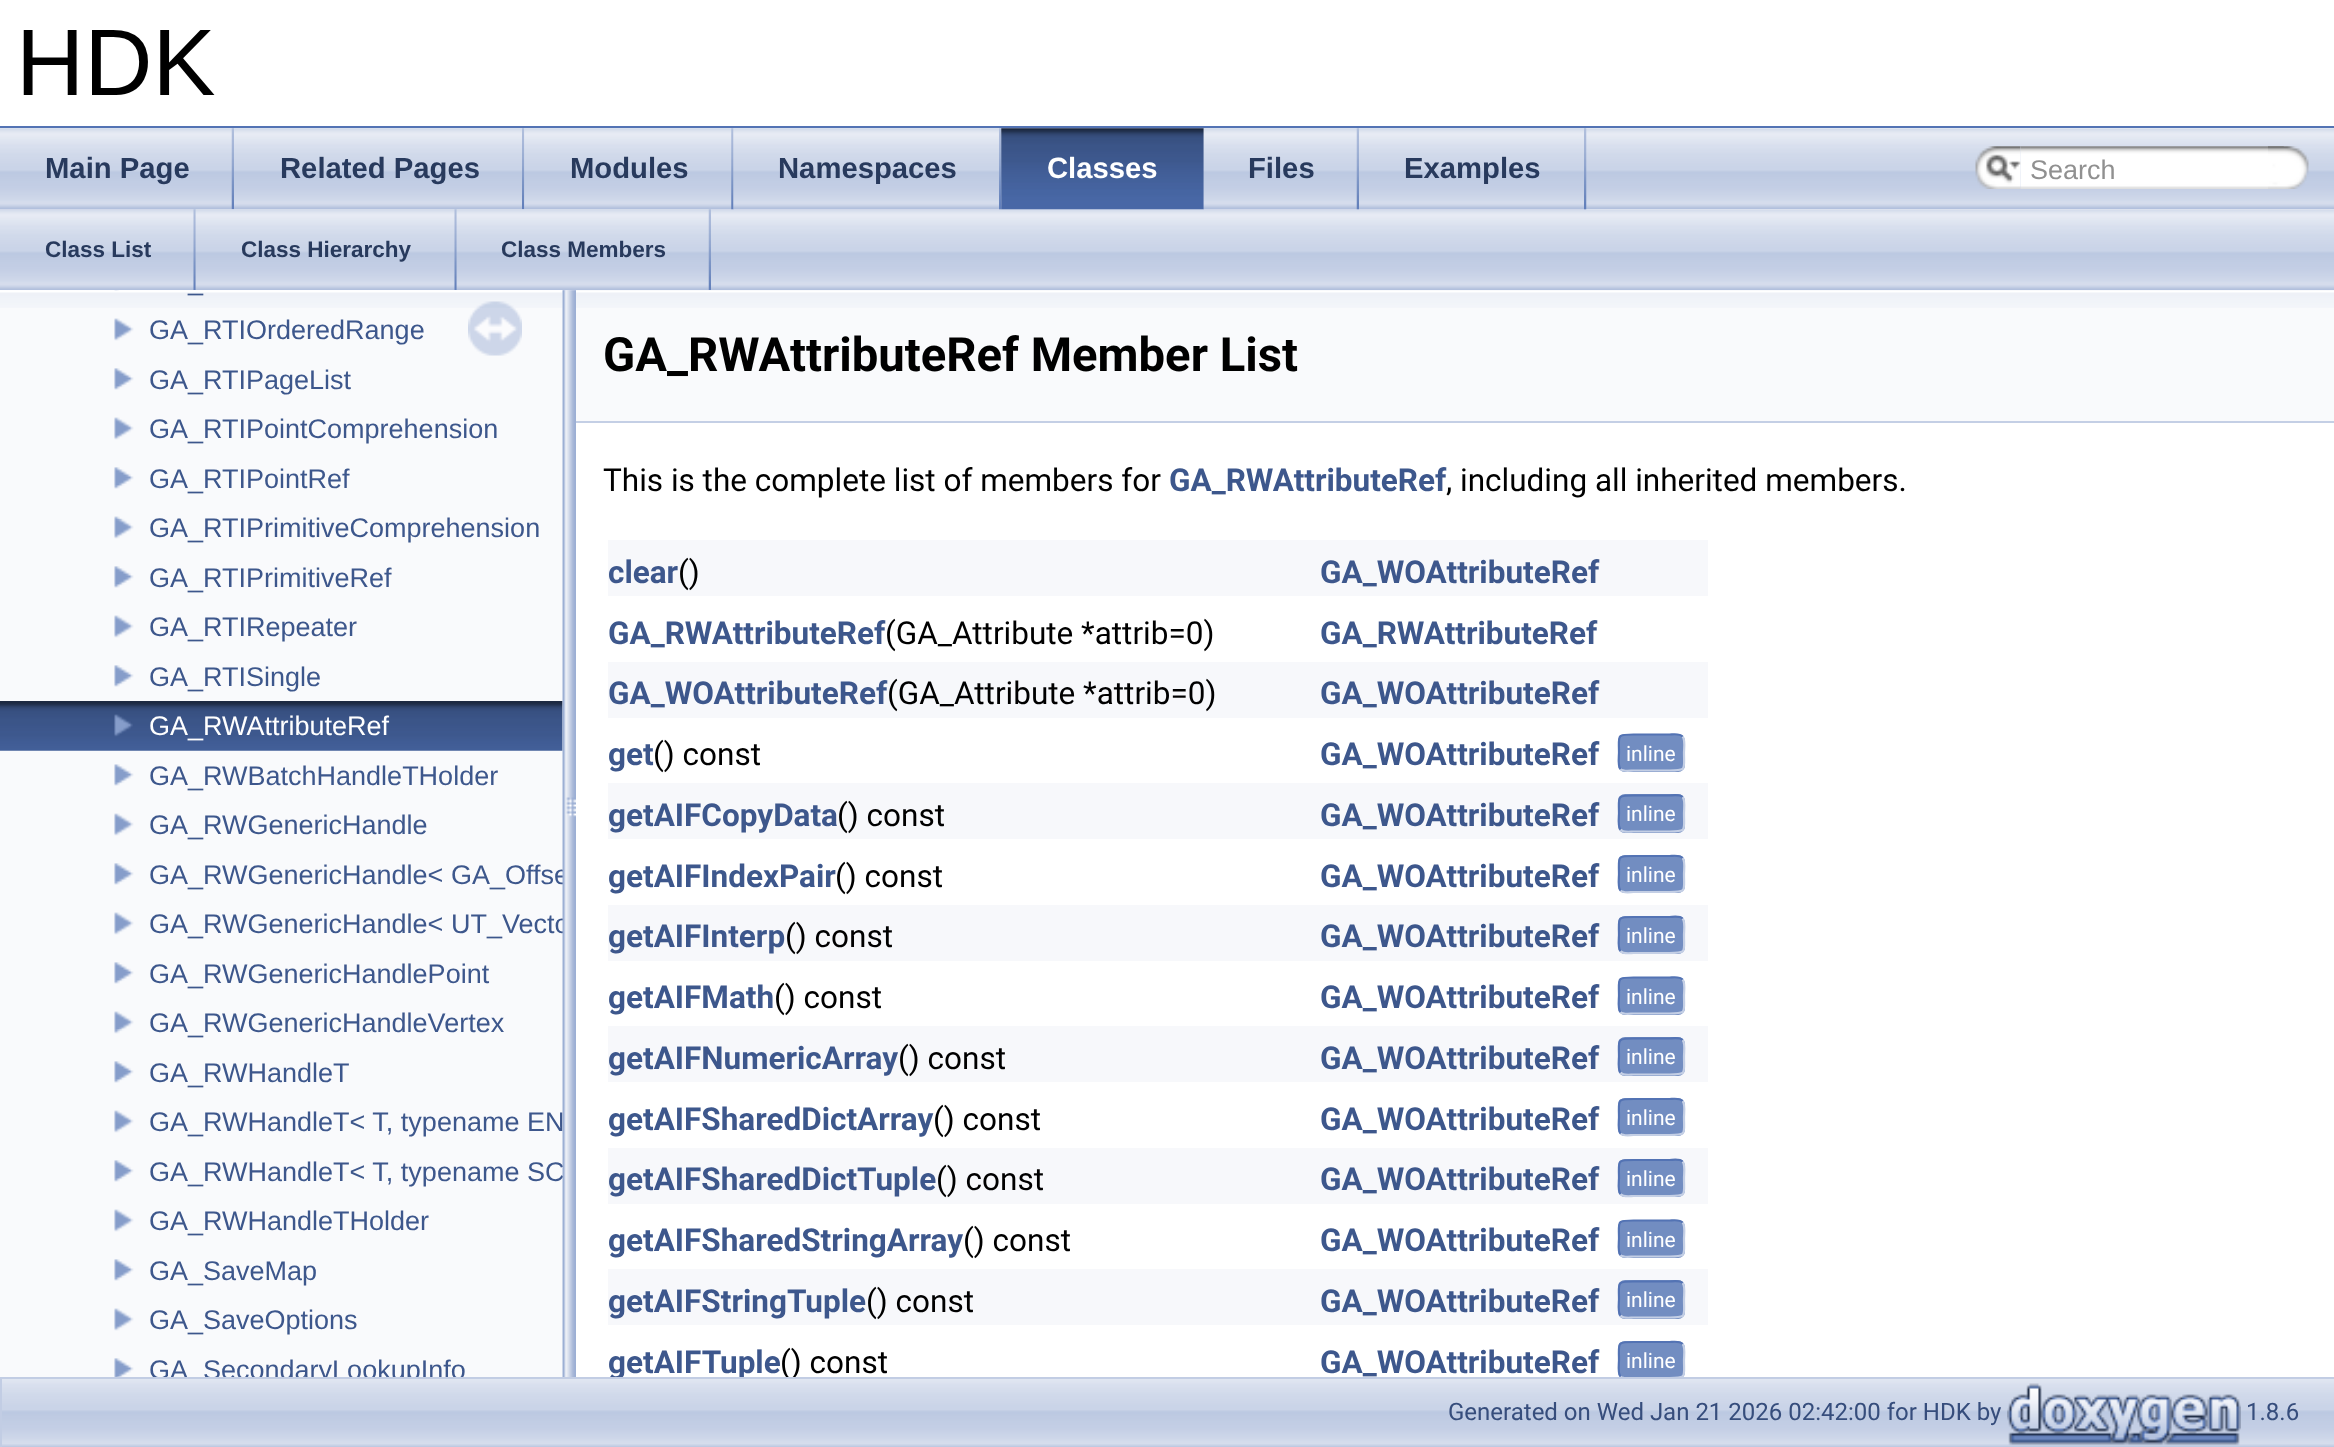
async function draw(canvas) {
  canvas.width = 2334;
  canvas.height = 1447;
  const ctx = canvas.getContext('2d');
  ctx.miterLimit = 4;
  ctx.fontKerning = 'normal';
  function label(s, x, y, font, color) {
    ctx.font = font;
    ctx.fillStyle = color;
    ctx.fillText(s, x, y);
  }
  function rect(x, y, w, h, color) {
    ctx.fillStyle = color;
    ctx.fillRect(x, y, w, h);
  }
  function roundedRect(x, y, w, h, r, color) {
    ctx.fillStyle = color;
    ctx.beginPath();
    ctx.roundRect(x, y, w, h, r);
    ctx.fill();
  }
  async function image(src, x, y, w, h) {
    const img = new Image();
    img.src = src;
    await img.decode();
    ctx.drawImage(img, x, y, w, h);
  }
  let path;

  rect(0, 0, 2334, 1447, '#fff');
  rect(0, 126, 2334, 2, '#5373b4');
  label('HDK', 16, 95, '94.5px Liberation Sans', '#000');
  await image('assets/img1.png', 0, 128, 2334, 82);
  await image('assets/img17.png', 0, 209, 2334, 82);
  await image('assets/img2.png', 0, 128, 234, 82);
  await image('assets/img3.png', 231, 128, 3, 82);
  label('Main Page', 45, 178, 'bold 29.25px Liberation Sans', '#283a5d');
  await image('assets/img4.png', 234, 128, 290, 82);
  await image('assets/img5.png', 522, 128, 3, 82);
  label('Related Pages', 280, 178, 'bold 29.25px Liberation Sans', '#283a5d');
  await image('assets/img6.png', 524, 128, 210, 82);
  await image('assets/img7.png', 731, 128, 3, 82);
  label('Modules', 570, 178, 'bold 29.25px Liberation Sans', '#283a5d');
  await image('assets/img8.png', 733, 128, 268, 82);
  await image('assets/img5.png', 999, 128, 3, 82);
  label('Namespaces', 778, 178, 'bold 29.25px Liberation Sans', '#283a5d');
  await image('assets/img9.png', 1001, 128, 203, 82);
  await image('assets/img10.png', 1001, 128, 203, 82);
  label('Classes', 1047, 178, 'bold 29.25px Liberation Sans', '#fff');
  await image('assets/img11.png', 1203, 128, 156, 82);
  await image('assets/img3.png', 1356, 128, 3, 82);
  label('Files', 1248, 178, 'bold 29.25px Liberation Sans', '#283a5d');
  await image('assets/img12.png', 1359, 128, 227, 82);
  await image('assets/img5.png', 1584, 128, 3, 82);
  label('Examples', 1404, 178, 'bold 29.25px Liberation Sans', '#283a5d');
  await image('assets/img13.png', 1975, 146, 46, 43);
  await image('assets/img14.png', 1986, 154, 35, 29);
  await image('assets/img15.png', 2020, 146, 264, 43);
  label('Search', 2030, 179, '27px Liberation Sans', '#909090');
  await image('assets/img16.png', 2268, 146, 41, 43);
  await image('assets/img18.png', 193, 209, 3, 81);
  label('Class List', 45, 257, 'bold 22.5px Liberation Sans', '#283a5d');
  await image('assets/img19.png', 195, 209, 262, 81);
  await image('assets/img20.png', 454, 209, 3, 81);
  label('Class Hierarchy', 241, 257, 'bold 22.5px Liberation Sans', '#283a5d');
  await image('assets/img21.png', 456, 209, 255, 82);
  await image('assets/img22.png', 708, 209, 3, 81);
  label('Class Members', 501, 257, 'bold 22.5px Liberation Sans', '#283a5d');
  rect(0, 290, 563, 1087, '#f9fafc');
  await image('assets/img23.png', 0, 290, 563, 18);
  await image('assets/img24.png', 114, 290, 5, 1);
  label('_', 188, 290, '27px Liberation Sans', '#3d578c');
  await image('assets/img25.png', 114, 318, 20, 23);
  label('GA_RTIOrderedRange', 149, 339, '27px Liberation Sans', '#3d578c');
  await image('assets/img26.png', 114, 368, 20, 22);
  label('GA_RTIPageList', 149, 389, '27px Liberation Sans', '#3d578c');
  await image('assets/img25.png', 114, 417, 20, 23);
  label('GA_RTIPointComprehension', 149, 438, '27px Liberation Sans', '#3d578c');
  await image('assets/img26.png', 114, 467, 20, 22);
  label('GA_RTIPointRef', 149, 488, '27px Liberation Sans', '#3d578c');
  await image('assets/img27.png', 114, 516, 20, 23);
  label('GA_RTIPrimitiveComprehension', 149, 537, '27px Liberation Sans', '#3d578c');
  await image('assets/img26.png', 114, 566, 20, 22);
  label('GA_RTIPrimitiveRef', 149, 587, '27px Liberation Sans', '#3d578c');
  await image('assets/img25.png', 114, 615, 20, 23);
  label('GA_RTIRepeater', 149, 636, '27px Liberation Sans', '#3d578c');
  await image('assets/img26.png', 114, 665, 20, 22);
  label('GA_RTISingle', 149, 686, '27px Liberation Sans', '#3d578c');
  await image('assets/img28.png', 0, 701, 563, 50);
  await image('assets/img29.png', 114, 714, 19, 23);
  label('GA_RWAttributeRef', 149, 735, '27px Liberation Sans', '#fff');
  await image('assets/img30.png', 114, 764, 20, 22);
  label('GA_RWBatchHandleTHolder', 149, 785, '27px Liberation Sans', '#3d578c');
  await image('assets/img31.png', 114, 813, 20, 23);
  label('GA_RWGenericHandle', 149, 834, '27px Liberation Sans', '#3d578c');
  await image('assets/img26.png', 114, 863, 20, 22);
  label('GA_RWGenericHandle< GA_Offse', 149, 884, '27px Liberation Sans', '#3d578c');
  await image('assets/img25.png', 114, 912, 20, 23);
  label('GA_RWGenericHandle< UT_Vecto', 149, 933, '27px Liberation Sans', '#3d578c');
  await image('assets/img26.png', 114, 962, 20, 22);
  label('GA_RWGenericHandlePoint', 149, 983, '27px Liberation Sans', '#3d578c');
  await image('assets/img32.png', 114, 1011, 20, 23);
  label('GA_RWGenericHandleVertex', 149, 1032, '27px Liberation Sans', '#3d578c');
  await image('assets/img26.png', 114, 1061, 20, 22);
  label('GA_RWHandleT', 149, 1082, '27px Liberation Sans', '#3d578c');
  await image('assets/img25.png', 114, 1110, 20, 23);
  label('GA_RWHandleT< T, typename EN', 149, 1131, '27px Liberation Sans', '#3d578c');
  await image('assets/img26.png', 114, 1160, 20, 22);
  label('GA_RWHandleT< T, typename SC', 149, 1181, '27px Liberation Sans', '#3d578c');
  await image('assets/img25.png', 114, 1209, 20, 23);
  label('GA_RWHandleTHolder', 149, 1230, '27px Liberation Sans', '#3d578c');
  await image('assets/img26.png', 114, 1259, 20, 22);
  label('GA_SaveMap', 149, 1280, '27px Liberation Sans', '#3d578c');
  await image('assets/img25.png', 114, 1308, 20, 23);
  label('GA_SaveOptions', 149, 1329, '27px Liberation Sans', '#3d578c');
  await image('assets/img33.png', 114, 1358, 20, 19);
  ctx.save();
  ctx.beginPath();
  ctx.rect(0, 290, 563, 1087);
  ctx.clip();
  label('GA_SecondaryLookupInfo', 149, 1379, '27px Liberation Sans', '#3d578c');
  ctx.restore();
  await image('assets/img34.png', 468, 301, 54, 55);
  await image('assets/img35.png', 562, 290, 14, 1087);
  rect(576, 290, 1758, 131, '#f9fafc');
  await image('assets/img36.png', 576, 291, 1758, 17);
  rect(576, 421, 1758, 2, '#c4cfe5');
  label('GA_RWAttributeRef Member List', 603, 371, 'bold 47.25px Roboto', '#000');
  label('This is the complete list of members for', 603, 491, '31.5px Roboto', '#000');
  label('GA_RWAttributeRef', 1169, 491, 'bold 31.5px Roboto', '#3d578c');
  label(', including all inherited members.', 1446, 491, '31.5px Roboto', '#000');
  rect(608, 540, 1100, 56, '#f7f8fb');
  label('clear', 608, 583, 'bold 31.5px Roboto', '#3d578c');
  label('()', 678, 583, '31.5px Roboto', '#000');
  label('GA_WOAttributeRef', 1320, 583, 'bold 31.5px Roboto', '#3d578c');
  label('GA_RWAttributeRef', 608, 644, 'bold 31.5px Roboto', '#3d578c');
  label('(GA_Attribute *attrib=0)', 885, 644, '31.5px Roboto', '#000');
  label('GA_RWAttributeRef', 1320, 644, 'bold 31.5px Roboto', '#3d578c');
  rect(608, 662, 1100, 56, '#f7f8fb');
  label('GA_WOAttributeRef', 608, 704, 'bold 31.5px Roboto', '#3d578c');
  label('(GA_Attribute *attrib=0)', 887, 704, '31.5px Roboto', '#000');
  label('GA_WOAttributeRef', 1320, 704, 'bold 31.5px Roboto', '#3d578c');
  label('get', 608, 765, 'bold 31.5px Roboto', '#3d578c');
  label('() const', 653, 765, '31.5px Roboto', '#000');
  label('GA_WOAttributeRef', 1320, 765, 'bold 31.5px Roboto', '#3d578c');
  roundedRect(1618, 734, 67, 38, 7, '#728dc1');
  path = new Path2D('M1682.5 736.5C1685.5 739.5 1684 749 1684 752.5C1684 770 1687 770.5 1669.5 770.5H1633.5C1630.5 770.5 1623.5 772 1620.5 769');
  ctx.strokeStyle = '#c4cfe5';
  ctx.lineWidth = 2.2;
  ctx.stroke(path);
  path = new Path2D('M1620.5 769C1617.5 766 1619 756.5 1619 752.5C1619 735 1616 734.5 1633.5 734.5H1669.5C1672.5 734.5 1679.5 733 1682.5 736.5');
  ctx.strokeStyle = '#5373b4';
  ctx.stroke(path);
  label('inline', 1626, 761, '21px Roboto', '#fff');
  rect(608, 783, 1100, 56, '#f7f8fb');
  label('getAIFCopyData', 608, 826, 'bold 31.5px Roboto', '#3d578c');
  label('() const', 837, 826, '31.5px Roboto', '#000');
  label('GA_WOAttributeRef', 1320, 826, 'bold 31.5px Roboto', '#3d578c');
  roundedRect(1618, 794, 67, 39, 7, '#728dc1');
  path = new Path2D('M1682.5 797C1685.5 800 1684 809.5 1684 813.5C1684 831 1687 831.5 1669.5 831.5H1633.5C1630.5 831.5 1623.5 833 1620.5 829.5');
  ctx.strokeStyle = '#c4cfe5';
  ctx.stroke(path);
  path = new Path2D('M1620.5 829.5C1617.5 826.5 1619 817 1619 813.5C1619 796 1616 795.5 1633.5 795.5H1669.5C1672.5 795.5 1679.5 794 1682.5 797');
  ctx.strokeStyle = '#5373b4';
  ctx.stroke(path);
  label('inline', 1626, 821, '21px Roboto', '#fff');
  label('getAIFIndexPair', 608, 887, 'bold 31.5px Roboto', '#3d578c');
  label('() const', 835, 887, '31.5px Roboto', '#000');
  label('GA_WOAttributeRef', 1320, 887, 'bold 31.5px Roboto', '#3d578c');
  roundedRect(1618, 855, 67, 38, 7, '#728dc1');
  path = new Path2D('M1682.5 858C1685.5 861 1684 870.5 1684 874C1684 891.5 1687 892 1669.5 892H1633.5C1630.5 892 1623.5 893.5 1620.5 890.5');
  ctx.strokeStyle = '#c4cfe5';
  ctx.stroke(path);
  path = new Path2D('M1620.5 890.5C1617.5 887.5 1619 878 1619 874C1619 856.5 1616 856 1633.5 856H1669.5C1672.5 856 1679.5 854.5 1682.5 858');
  ctx.strokeStyle = '#5373b4';
  ctx.stroke(path);
  label('inline', 1626, 882, '21px Roboto', '#fff');
  rect(608, 905, 1100, 56, '#f7f8fb');
  label('getAIFInterp', 608, 947, 'bold 31.5px Roboto', '#3d578c');
  label('() const', 785, 947, '31.5px Roboto', '#000');
  label('GA_WOAttributeRef', 1320, 947, 'bold 31.5px Roboto', '#3d578c');
  roundedRect(1618, 916, 67, 38, 7, '#728dc1');
  path = new Path2D('M1682.5 918.5C1685.5 921.5 1684 931 1684 935C1684 952.5 1687 953 1669.5 953H1633.5C1630.5 953 1623.5 954.5 1620.5 951');
  ctx.strokeStyle = '#c4cfe5';
  ctx.stroke(path);
  path = new Path2D('M1620.5 951C1617.5 948 1619 938.5 1619 935C1619 917.5 1616 917 1633.5 917H1669.5C1672.5 917 1679.5 915.5 1682.5 918.5');
  ctx.strokeStyle = '#5373b4';
  ctx.stroke(path);
  label('inline', 1626, 943, '21px Roboto', '#fff');
  label('getAIFMath', 608, 1008, 'bold 31.5px Roboto', '#3d578c');
  label('() const', 774, 1008, '31.5px Roboto', '#000');
  label('GA_WOAttributeRef', 1320, 1008, 'bold 31.5px Roboto', '#3d578c');
  roundedRect(1618, 977, 67, 38, 7, '#728dc1');
  path = new Path2D('M1682.5 979.5C1685.5 982.5 1684 992 1684 995.5C1684 1013 1687 1013.5 1669.5 1013.5H1633.5C1630.5 1013.5 1623.5 1015 1620.5 1012');
  ctx.strokeStyle = '#c4cfe5';
  ctx.stroke(path);
  path = new Path2D('M1620.5 1012C1617.5 1009 1619 999.5 1619 995.5C1619 978 1616 977.5 1633.5 977.5H1669.5C1672.5 977.5 1679.5 976 1682.5 979.5');
  ctx.strokeStyle = '#5373b4';
  ctx.stroke(path);
  label('inline', 1626, 1004, '21px Roboto', '#fff');
  rect(608, 1026, 1100, 56, '#f7f8fb');
  label('getAIFNumericArray', 608, 1069, 'bold 31.5px Roboto', '#3d578c');
  label('() const', 898, 1069, '31.5px Roboto', '#000');
  label('GA_WOAttributeRef', 1320, 1069, 'bold 31.5px Roboto', '#3d578c');
  roundedRect(1618, 1037, 67, 39, 7, '#728dc1');
  path = new Path2D('M1682.5 1040C1685.5 1043 1684 1052.5 1684 1056.5C1684 1074 1687 1074.5 1669.5 1074.5H1633.5C1630.5 1074.5 1623.5 1076 1620.5 1072.5');
  ctx.strokeStyle = '#c4cfe5';
  ctx.stroke(path);
  path = new Path2D('M1620.5 1072.5C1617.5 1069.5 1619 1060 1619 1056.5C1619 1039 1616 1038.5 1633.5 1038.5H1669.5C1672.5 1038.5 1679.5 1037 1682.5 1040');
  ctx.strokeStyle = '#5373b4';
  ctx.stroke(path);
  label('inline', 1626, 1064, '21px Roboto', '#fff');
  label('getAIFSharedDictArray', 608, 1130, 'bold 31.5px Roboto', '#3d578c');
  label('() const', 933, 1130, '31.5px Roboto', '#000');
  label('GA_WOAttributeRef', 1320, 1130, 'bold 31.5px Roboto', '#3d578c');
  roundedRect(1618, 1098, 67, 38, 7, '#728dc1');
  path = new Path2D('M1682.5 1101C1685.5 1104 1684 1113.5 1684 1117C1684 1134.5 1687 1135 1669.5 1135H1633.5C1630.5 1135 1623.5 1136.5 1620.5 1133.5');
  ctx.strokeStyle = '#c4cfe5';
  ctx.stroke(path);
  path = new Path2D('M1620.5 1133.5C1617.5 1130.5 1619 1121 1619 1117C1619 1099.5 1616 1099 1633.5 1099H1669.5C1672.5 1099 1679.5 1097.5 1682.5 1101');
  ctx.strokeStyle = '#5373b4';
  ctx.stroke(path);
  label('inline', 1626, 1125, '21px Roboto', '#fff');
  rect(608, 1148, 1100, 56, '#f7f8fb');
  label('getAIFSharedDictTuple', 608, 1190, 'bold 31.5px Roboto', '#3d578c');
  label('() const', 936, 1190, '31.5px Roboto', '#000');
  label('GA_WOAttributeRef', 1320, 1190, 'bold 31.5px Roboto', '#3d578c');
  roundedRect(1618, 1159, 67, 38, 7, '#728dc1');
  path = new Path2D('M1682.5 1161.5C1685.5 1164.5 1684 1174 1684 1178C1684 1195.5 1687 1196 1669.5 1196H1633.5C1630.5 1196 1623.5 1197.5 1620.5 1194');
  ctx.strokeStyle = '#c4cfe5';
  ctx.stroke(path);
  path = new Path2D('M1620.5 1194C1617.5 1191 1619 1181.5 1619 1178C1619 1160.5 1616 1160 1633.5 1160H1669.5C1672.5 1160 1679.5 1158.5 1682.5 1161.5');
  ctx.strokeStyle = '#5373b4';
  ctx.stroke(path);
  label('inline', 1626, 1186, '21px Roboto', '#fff');
  label('getAIFSharedStringArray', 608, 1251, 'bold 31.5px Roboto', '#3d578c');
  label('() const', 963, 1251, '31.5px Roboto', '#000');
  label('GA_WOAttributeRef', 1320, 1251, 'bold 31.5px Roboto', '#3d578c');
  roundedRect(1618, 1220, 67, 38, 7, '#728dc1');
  path = new Path2D('M1682.5 1222.5C1685.5 1225.5 1684 1235 1684 1238.5C1684 1256 1687 1256.5 1669.5 1256.5H1633.5C1630.5 1256.5 1623.5 1258 1620.5 1255');
  ctx.strokeStyle = '#c4cfe5';
  ctx.stroke(path);
  path = new Path2D('M1620.5 1255C1617.5 1252 1619 1242.5 1619 1238.5C1619 1221 1616 1220.5 1633.5 1220.5H1669.5C1672.5 1220.5 1679.5 1219 1682.5 1222.5');
  ctx.strokeStyle = '#5373b4';
  ctx.stroke(path);
  label('inline', 1626, 1247, '21px Roboto', '#fff');
  rect(608, 1269, 1100, 56, '#f7f8fb');
  label('getAIFStringTuple', 608, 1312, 'bold 31.5px Roboto', '#3d578c');
  label('() const', 866, 1312, '31.5px Roboto', '#000');
  label('GA_WOAttributeRef', 1320, 1312, 'bold 31.5px Roboto', '#3d578c');
  roundedRect(1618, 1280, 67, 39, 7, '#728dc1');
  path = new Path2D('M1682.5 1283C1685.5 1286 1684 1295.5 1684 1299.5C1684 1317 1687 1317.5 1669.5 1317.5H1633.5C1630.5 1317.5 1623.5 1319 1620.5 1315.5');
  ctx.strokeStyle = '#c4cfe5';
  ctx.stroke(path);
  path = new Path2D('M1620.5 1315.5C1617.5 1312.5 1619 1303 1619 1299.5C1619 1282 1616 1281.5 1633.5 1281.5H1669.5C1672.5 1281.5 1679.5 1280 1682.5 1283');
  ctx.strokeStyle = '#5373b4';
  ctx.stroke(path);
  label('inline', 1626, 1307, '21px Roboto', '#fff');
  label('getAIFTuple', 608, 1373, 'bold 31.5px Roboto', '#3d578c');
  label('() const', 780, 1373, '31.5px Roboto', '#000');
  label('GA_WOAttributeRef', 1320, 1373, 'bold 31.5px Roboto', '#3d578c');
  roundedRect(1618, 1341, 67, 38, 7, '#728dc1');
  path = new Path2D('M1682.5 1344C1685.5 1347 1684 1356.5 1684 1360C1684 1377.5 1687 1378 1669.5 1378H1633.5C1630.5 1378 1623.5 1379.5 1620.5 1376.5');
  ctx.strokeStyle = '#c4cfe5';
  ctx.stroke(path);
  path = new Path2D('M1620.5 1376.5C1617.5 1373.5 1619 1364 1619 1360C1619 1342.5 1616 1342 1633.5 1342H1669.5C1672.5 1342 1679.5 1340.5 1682.5 1344');
  ctx.strokeStyle = '#5373b4';
  ctx.stroke(path);
  label('inline', 1626, 1368, '21px Roboto', '#fff');
  await image('assets/img37.png', 2, 1379, 2332, 68);
  ctx.strokeStyle = '#c2cde4';
  ctx.lineWidth = 2;
  ctx.strokeRect(1, 1378, 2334, 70);
  label('Generated on Wed Jan 21 2026 02:42:00 for HDK by', 1448, 1420, '24px Roboto', '#364d7c');
  await image('assets/img38.png', 2007, 1383, 234, 63);
  label('1.8.6', 2246, 1420, '24px Roboto', '#364d7c');
}

draw(document.querySelector('canvas'));
